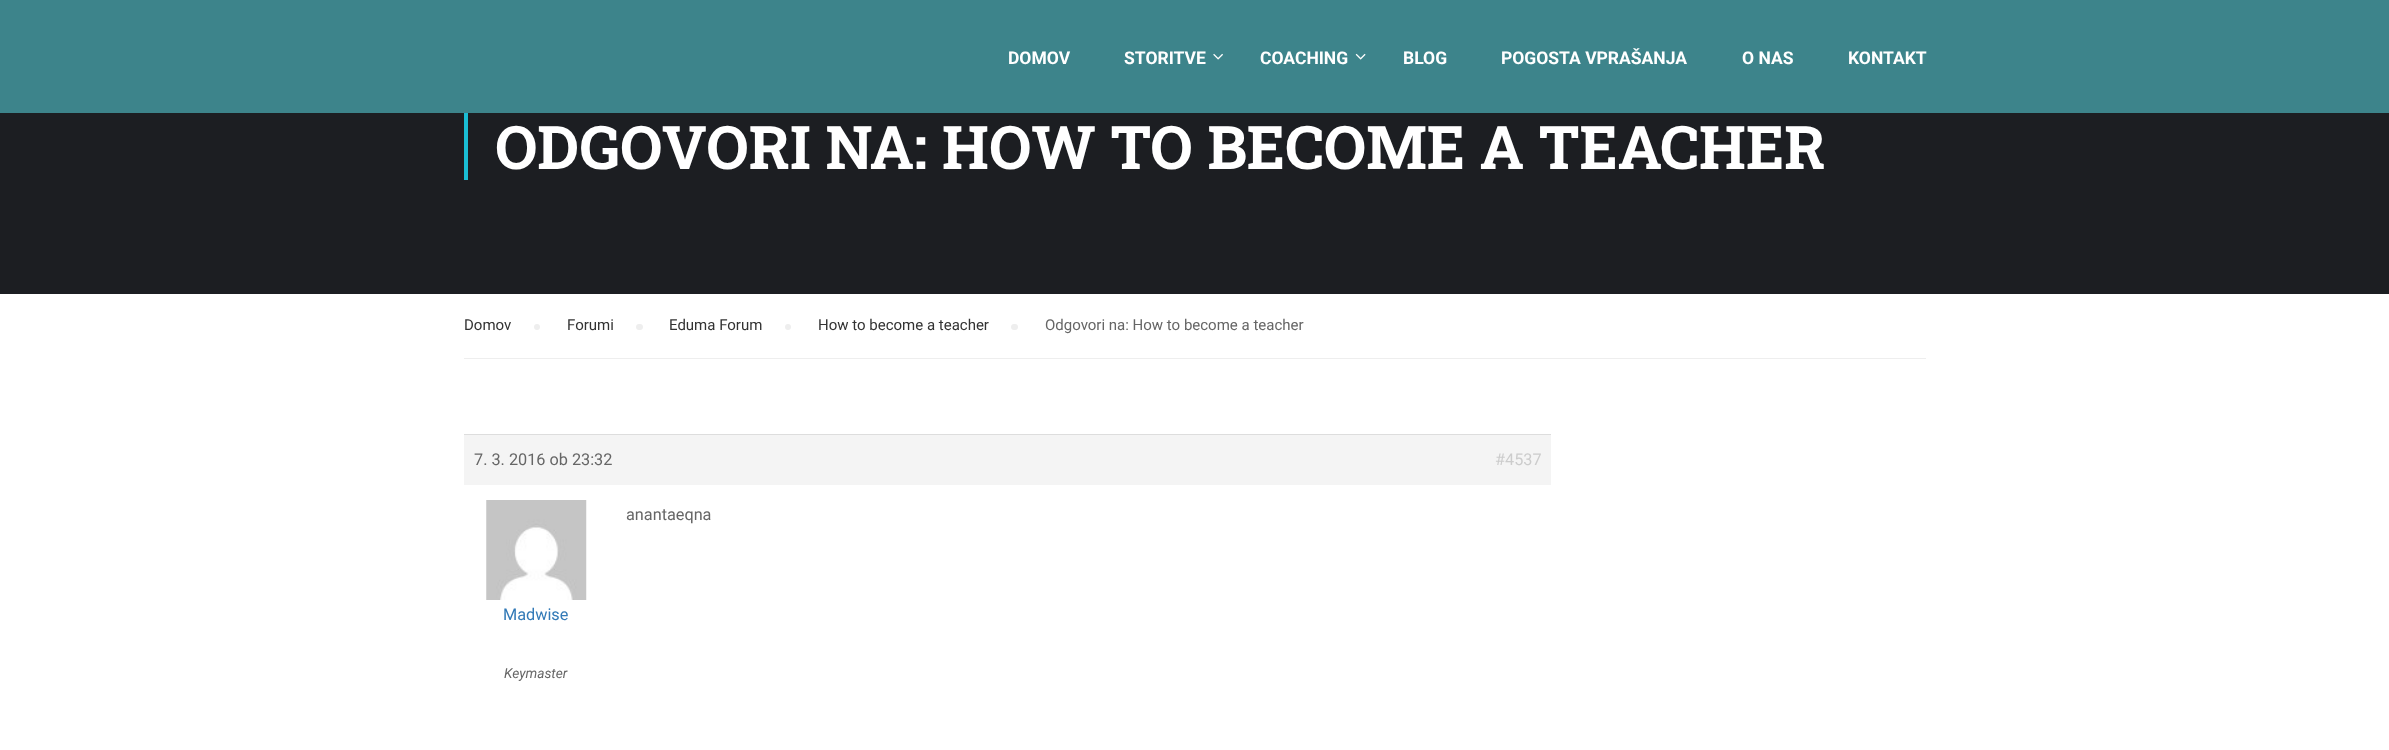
async function draw(canvas) {
  canvas.width = 2389;
  canvas.height = 750;
  const ctx = canvas.getContext('2d');
  ctx.miterLimit = 4;
  ctx.fontKerning = 'normal';
  function label(s, x, y, font, color) {
    ctx.font = font;
    ctx.fillStyle = color;
    ctx.fillText(s, x, y);
  }
  function rect(x, y, w, h, color) {
    ctx.fillStyle = color;
    ctx.fillRect(x, y, w, h);
  }
  function roundedRect(x, y, w, h, r, color) {
    ctx.fillStyle = color;
    ctx.beginPath();
    ctx.roundRect(x, y, w, h, r);
    ctx.fill();
  }
  async function image(src, x, y, w, h) {
    const img = new Image();
    img.src = src;
    await img.decode();
    ctx.drawImage(img, x, y, w, h);
  }

  rect(0, 0, 2389, 750, '#fff');
  rect(0, 0, 2389, 113, '#3d848b');
  label('DOMOV', 1008, 64, 'bold 17.5px Roboto', '#fff');
  label('STORITVE', 1124, 64, 'bold 17.5px Roboto', '#fff');
  await image('assets/img1.png', 1213, 53, 10, 7);
  label('COACHING', 1260, 64, 'bold 17.5px Roboto', '#fff');
  await image('assets/img2.png', 1355, 53, 11, 7);
  label('BLOG', 1403, 64, 'bold 17.5px Roboto', '#fff');
  label('POGOSTA VPRAŠANJA', 1501, 64, 'bold 17.5px Roboto', '#fff');
  label('O NAS', 1742, 64, 'bold 17.5px Roboto', '#fff');
  label('KONTAKT', 1848, 64, 'bold 17.5px Roboto', '#fff');
  rect(0, 113, 2389, 181, '#1c1e22');
  rect(464, 113, 4, 67, '#1abdd4');
  label('ODGOVORI NA: HOW TO BECOME A TEACHER', 495, 169, 'bold 60px Roboto Slab', '#fff');
  rect(464, 358, 1462, 1, '#eee');
  label('Domov', 464, 330, '15px Roboto', '#333');
  ctx.fillStyle = '#eee';
  ctx.beginPath();
  ctx.arc(537, 327, 3, 0, 2 * Math.PI);
  ctx.fill();
  label('Forumi', 567, 330, '15px Roboto', '#333');
  roundedRect(636, 324, 7, 6, 3, '#eee');
  label('Eduma Forum', 669, 330, '15px Roboto', '#333');
  ctx.fillStyle = '#eee';
  ctx.beginPath();
  ctx.arc(788, 327, 3, 0, 2 * Math.PI);
  ctx.fill();
  label('How to become a teacher', 818, 330, '15px Roboto', '#333');
  roundedRect(1011, 324, 7, 6, 3, '#eee');
  label('Odgovori na: How to become a teacher', 1045, 330, '15px Roboto', '#666');
  rect(464, 435, 1087, 50, '#f4f4f4');
  rect(464, 434, 1087, 1, '#ddd');
  label('7. 3. 2016 ob 23:32', 474, 465, '16.25px Roboto', '#666');
  label('#4537', 1495, 465, '16.25px Roboto', '#ccc');
  label('anantaeqna', 626, 520, '16.25px Roboto', '#666');
  await image('assets/img3.png', 486, 500, 101, 100);
  label('Madwise', 503, 620, '16.25px Roboto', '#337ab7');
  label('Keymaster', 504, 678, 'italic 13.75px Roboto', '#666');
}

draw(document.querySelector('canvas'));
